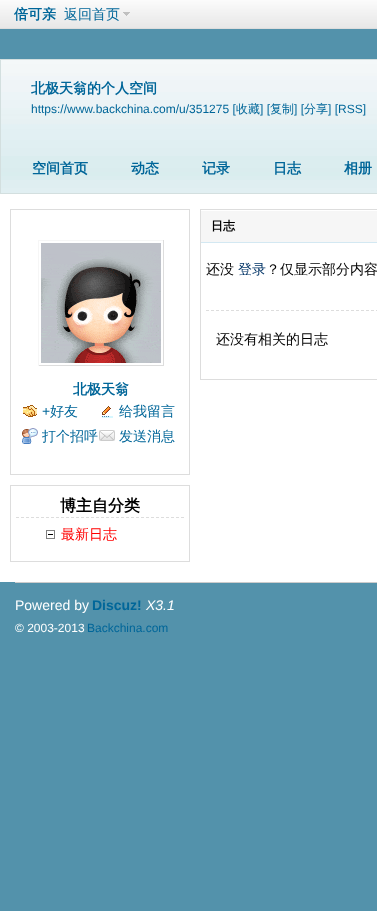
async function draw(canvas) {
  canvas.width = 377;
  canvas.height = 911;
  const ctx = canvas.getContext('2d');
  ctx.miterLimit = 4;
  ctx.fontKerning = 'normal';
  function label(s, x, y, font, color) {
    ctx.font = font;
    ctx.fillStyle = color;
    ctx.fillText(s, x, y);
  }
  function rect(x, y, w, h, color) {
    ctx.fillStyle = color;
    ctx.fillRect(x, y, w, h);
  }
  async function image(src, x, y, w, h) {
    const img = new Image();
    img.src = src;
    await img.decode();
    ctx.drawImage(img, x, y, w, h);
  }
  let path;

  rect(0, 0, 377, 911, '#5392ab');
  await image('assets/img1.png', 0, 0, 377, 28);
  rect(0, 28, 377, 1, '#ddd');
  label('倍可亲', 14, 19, 'bold 14px WenQuanYi Zen Hei', '#069');
  await image('assets/img2.png', 123, 12, 7, 4);
  label('返回首页', 64, 19, '500 14px WenQuanYi Zen Hei', '#069');
  await image('assets/img3.png', 1, 60, 376, 133);
  ctx.strokeStyle = '#d3dfdf';
  ctx.strokeRect(0.5, 59.5, 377, 134);
  label('北极天翁的个人空间', 31, 93, 'bold 14px WenQuanYi Zen Hei', '#069');
  label('https://www.backchina.com/u/351275 [', 31, 113, '12px Liberation Sans', '#069');
  label('收藏', 236, 113, '500 12px WenQuanYi Zen Hei', '#069');
  label('] [', 260, 113, '12px Liberation Sans', '#069');
  label('复制', 270, 113, '500 12px WenQuanYi Zen Hei', '#069');
  label('] [', 294, 113, '12px Liberation Sans', '#069');
  label('分享', 304, 113, '500 12px WenQuanYi Zen Hei', '#069');
  label('] [RSS]', 328, 113, '12px Liberation Sans', '#069');
  label('空间首页', 32, 173, 'bold 14px WenQuanYi Zen Hei', '#069');
  label('动态', 131, 173, 'bold 14px WenQuanYi Zen Hei', '#069');
  label('记录', 202, 173, 'bold 14px WenQuanYi Zen Hei', '#069');
  label('日志', 273, 173, 'bold 14px WenQuanYi Zen Hei', '#069');
  label('相册', 344, 173, 'bold 14px WenQuanYi Zen Hei', '#069');
  rect(0, 194, 377, 388, '#fff');
  ctx.strokeStyle = '#ddd';
  ctx.strokeRect(200.5, 209.5, 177, 170);
  rect(201, 211, 176, 31, '#f6f6f6');
  rect(201, 242, 176, 1, '#d3e8f2');
  label('日志', 211, 230, 'bold 12px WenQuanYi Zen Hei', '#000');
  path = new Path2D('M206 310.5H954');
  ctx.setLineDash([3, 2]);
  ctx.stroke(path);
  label('还没', 206, 274, '500 14px WenQuanYi Zen Hei', '#000');
  label('登录', 238, 274, '500 14px WenQuanYi Zen Hei', '#036');
  label('？仅显示部分内容', 266, 274, '500 14px WenQuanYi Zen Hei', '#000');
  label('还没有相关的日志', 216, 344, '500 14px WenQuanYi Zen Hei', '#000');
  ctx.setLineDash([]);
  ctx.strokeRect(10.5, 209.5, 179, 265);
  rect(38, 240, 126, 1, '#f6f6f6');
  rect(163, 240, 1, 126, '#ddd');
  rect(38, 365, 126, 1, '#ddd');
  rect(38, 240, 1, 126, '#f6f6f6');
  await image('assets/img4.png', 41, 243, 120, 120);
  label('北极天翁', 73, 394, 'bold 14px WenQuanYi Zen Hei', '#069');
  await image('assets/img5.png', 23, 405, 14, 12);
  label('+', 42, 416, '14px Liberation Sans', '#069');
  label('好友', 50, 416, '500 14px WenQuanYi Zen Hei', '#069');
  await image('assets/img6.png', 102, 406, 11, 12);
  label('给我留言', 119, 416, '500 14px WenQuanYi Zen Hei', '#069');
  await image('assets/img7.png', 22, 428, 16, 16);
  label('打个招呼', 42, 441, '500 14px WenQuanYi Zen Hei', '#069');
  await image('assets/img8.png', 99, 430, 16, 11);
  label('发送消息', 119, 441, '500 14px WenQuanYi Zen Hei', '#069');
  ctx.strokeRect(10.5, 485.5, 179, 76);
  path = new Path2D('M16 517.5H184');
  ctx.setLineDash([3, 2]);
  ctx.stroke(path);
  label('博主自分类', 60, 511, 'bold 16px WenQuanYi Zen Hei', '#000');
  await image('assets/img9.png', 46, 530, 9, 9);
  label('最新日志', 61, 539, '500 14px WenQuanYi Zen Hei', '#f00');
  rect(15, 582, 362, 1, '#ccc');
  label('Powered by', 15, 610, '14px Liberation Sans', '#fff');
  label('Discuz!', 92, 610, 'bold 14px Liberation Sans', '#069');
  label('X3.1', 146, 610, 'italic 14px Liberation Sans', '#fff');
  label('© 2003-2013', 15, 632, '12px Liberation Sans', '#fff');
  label('Backchina.com', 87, 632, '12px Liberation Sans', '#069');
}

draw(document.querySelector('canvas'));
